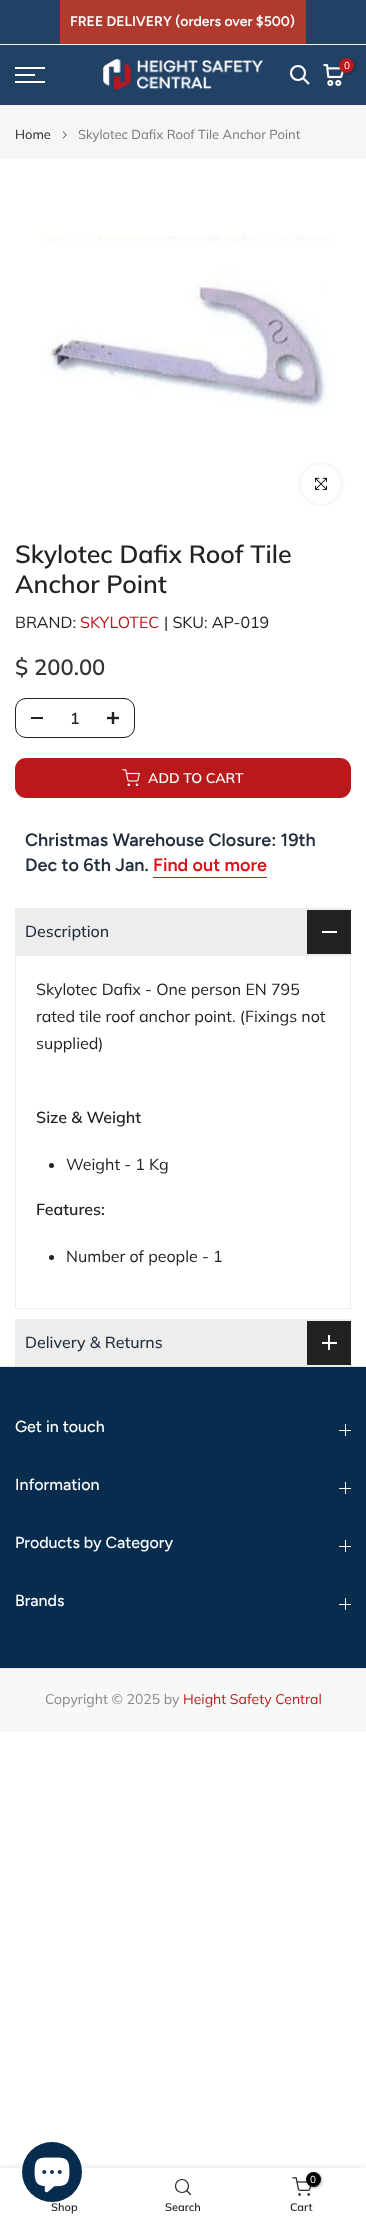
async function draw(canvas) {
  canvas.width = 366;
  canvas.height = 2223;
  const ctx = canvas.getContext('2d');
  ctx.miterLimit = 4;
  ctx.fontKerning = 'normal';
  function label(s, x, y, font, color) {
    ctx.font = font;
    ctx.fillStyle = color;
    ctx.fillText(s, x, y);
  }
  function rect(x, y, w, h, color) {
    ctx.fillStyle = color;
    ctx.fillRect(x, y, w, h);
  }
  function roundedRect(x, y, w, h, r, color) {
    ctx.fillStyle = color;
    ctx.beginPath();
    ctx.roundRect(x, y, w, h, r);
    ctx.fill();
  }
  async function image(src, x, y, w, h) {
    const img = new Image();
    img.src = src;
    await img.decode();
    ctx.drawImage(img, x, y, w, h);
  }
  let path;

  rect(0, 0, 366, 2223, '#fff');
  rect(0, 0, 366, 44, '#214165');
  rect(0, 44, 366, 1, '#f6f6f6');
  rect(60, 0, 246, 44, '#b03a2e');
  label('FREE DELIVERY (orders over $500)', 70, 26, '600 14px Figtree', '#fff');
  rect(0, 45, 366, 60, '#214165');
  await image('assets/img1.png', 103, 59, 160, 31);
  ctx.beginPath();
  ctx.arc(298, 73, 7, 0, 2 * Math.PI);
  ctx.strokeStyle = '#fff';
  ctx.lineWidth = 2.2;
  ctx.stroke();
  path = new Path2D('M303 78L309 84');
  ctx.stroke(path);
  await image('assets/img2.png', 323, 64, 21, 22);
  ctx.fillStyle = '#0000004d';
  ctx.filter = 'blur(1.5px)';
  ctx.beginPath();
  ctx.roundRect(340, 59, 15, 15, 7.5);
  ctx.fill();
  ctx.filter = 'none';
  ctx.fillStyle = '#ba191b';
  ctx.beginPath();
  ctx.arc(346.5, 65.5, 7.5, 0, 2 * Math.PI);
  ctx.fill();
  label('0', 344, 69, '10px Muli', '#fff');
  rect(15, 67, 30, 2, '#fff');
  rect(15, 74, 20, 2, '#fff');
  rect(15, 81, 30, 2, '#fff');
  rect(0, 105, 366, 54, '#f6f6f6');
  label('Home', 15, 139, '13px Muli', '#222');
  await image('assets/img3.png', 62, 131, 5, 8);
  label('Skylotec Dafix Roof Tile Anchor Point', 78, 139, '13px Muli', '#777');
  await image('assets/img4.png', 38, 233, 296, 176);
  ctx.fillStyle = '#00000017';
  ctx.filter = 'blur(2.5px)';
  ctx.beginPath();
  ctx.roundRect(301, 464, 40, 40, 20);
  ctx.fill();
  ctx.filter = 'none';
  ctx.fillStyle = '#fff';
  ctx.beginPath();
  ctx.arc(321, 484, 20, 0, 2 * Math.PI);
  ctx.fill();
  await image('assets/img5.png', 315, 477, 12, 13);
  label('Skylotec Dafix Roof Tile', 15, 563, '600 25px Muli', '#222');
  label('Anchor Point', 15, 593, '600 25px Muli', '#222');
  label('BRAND:', 15, 628, '16px Muli', '#222');
  label('SKYLOTEC', 80, 628, '16px Muli', '#ba191b');
  label('| SKU: AP-019', 164, 628, '16px Muli', '#222');
  label('$ 200.00', 15, 675, '600 22px Muli', '#333');
  ctx.beginPath();
  ctx.roundRect(15.5, 698.5, 119, 39, 10.5);
  ctx.strokeStyle = '#222';
  ctx.lineWidth = 1;
  ctx.stroke();
  rect(31, 717, 12, 2, '#222');
  label('1', 70, 724, '600 16px Muli', '#222');
  await image('assets/img6.png', 107, 712, 12, 12);
  roundedRect(15, 758, 336, 40, 11, '#ba191b');
  await image('assets/img7.png', 122, 769, 18, 18);
  label('ADD TO CART', 148, 783, '600 14px Muli', '#fff');
  label('Christmas Warehouse Closure: 19th', 25, 846, '600 18px Figtree', '#222f3e');
  label('Dec to 6th Jan.', 25, 871, '600 18px Figtree', '#222f3e');
  label('Find out more', 153, 871, '600 18px Figtree', '#e30b16');
  rect(153, 877, 114, 1, '#e30b16');
  rect(15, 908, 336, 48, '#ededed');
  label('Description', 25, 937, '500 16px Muli', '#222f3e');
  rect(307, 910, 44, 44, '#222');
  rect(322, 931, 15, 2, '#fff');
  ctx.fillStyle = '#ededed';
  path = new Path2D('M351 956V1309L350 1308V956Z');
  ctx.fill(path);
  ctx.fillStyle = '#22222214';
  path = new Path2D('M351 1309H15L16 1308H350Z');
  ctx.fill(path);
  path = new Path2D('M15 1309V956H16V1308Z');
  ctx.fill(path);
  label('Skylotec Dafix - One person EN 795', 36, 995, '16px Muli', '#222');
  label('rated tile roof anchor point. (Fixings not', 36, 1022, '16px Muli', '#222');
  label('supplied)', 36, 1049, '16px Muli', '#222');
  label('Size & Weight', 36, 1123, '600 16px Muli', '#222');
  ctx.beginPath();
  ctx.arc(51.5, 1165.5, 2.5, 0, 2 * Math.PI);
  ctx.fill();
  label('Weight - 1 Kg', 66, 1170, '16px Muli', '#222');
  label('Features:', 36, 1215, '600 16px Muli', '#222');
  ctx.beginPath();
  ctx.arc(51.5, 1257.5, 2.5, 0, 2 * Math.PI);
  ctx.fill();
  label('Number of people - 1', 66, 1262, '16px Muli', '#222');
  rect(15, 1319, 336, 47, '#ededed');
  label('Delivery & Returns', 25, 1348, '500 16px Muli', '#222f3e');
  rect(307, 1321, 44, 44, '#222');
  rect(328, 1335, 2, 15, '#fff');
  rect(322, 1342, 15, 2, '#fff');
  rect(0, 1367, 366, 301, '#082c4e');
  rect(0, 1366, 366, 1, '#e6e6e6');
  label('Get in touch', 15, 1432, '500 16px Figtree', '#fff');
  rect(345, 1424, 1, 12, '#fff');
  rect(339, 1430, 12, 1, '#fff');
  label('Information', 15, 1490, '500 16px Figtree', '#fff');
  rect(345, 1482, 1, 12, '#fff');
  rect(339, 1488, 12, 1, '#fff');
  label('Products by Category', 15, 1548, '500 16px Figtree', '#fff');
  rect(345, 1540, 1, 12, '#fff');
  rect(339, 1546, 12, 1, '#fff');
  label('Brands', 15, 1606, '500 16px Figtree', '#fff');
  rect(345, 1598, 1, 12, '#fff');
  rect(339, 1604, 12, 1, '#fff');
  rect(0, 1669, 366, 63, '#f8f8f8');
  rect(0, 1668, 366, 1, '#e6e6e6');
  label('Copyright © 2025 by', 45, 1704, '14px Muli', '#878787');
  label('Height Safety Central', 183, 1704, '14px Muli', '#ba191b');
  ctx.save();
  ctx.beginPath();
  ctx.rect(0, 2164, 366, 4);
  ctx.clip();
  ctx.fillStyle = '#0000001f';
  ctx.filter = 'blur(4.5px)';
  ctx.beginPath();
  ctx.rect(0, 2168, 366, 55);
  ctx.fill();
  ctx.filter = 'none';
  ctx.restore();
  await image('assets/img9.png', 71, 2194, 1, 1);
  ctx.fillStyle = '#082c4e';
  ctx.beginPath();
  ctx.arc(52, 2172, 30, 0, 2 * Math.PI);
  ctx.fill();
  await image('assets/img8.png', 34, 2157, 36, 36);
  label('Shop', 51, 2211, '600 11px Muli', '#222');
  ctx.beginPath();
  ctx.arc(182, 2186, 6.5, 0, 2 * Math.PI);
  ctx.lineWidth = 1.2;
  ctx.stroke();
  path = new Path2D('M190.5 2194.5L187 2191');
  ctx.lineCap = 'round';
  ctx.lineJoin = 'round';
  ctx.stroke(path);
  label('Search', 165, 2211, '600 11px Muli', '#222');
  await image('assets/img10.png', 292, 2177, 19, 19);
  ctx.fillStyle = '#0000004d';
  ctx.filter = 'blur(1.5px)';
  ctx.beginPath();
  ctx.roundRect(307, 2173, 15, 15, 7.5);
  ctx.fill();
  ctx.filter = 'none';
  ctx.fillStyle = '#000';
  ctx.beginPath();
  ctx.arc(313.5, 2179.5, 7.5, 0, 2 * Math.PI);
  ctx.fill();
  label('0', 310, 2183, '10px Muli', '#fff');
  label('Cart', 290, 2211, '600 11px Muli', '#222');
}

draw(document.querySelector('canvas'));
